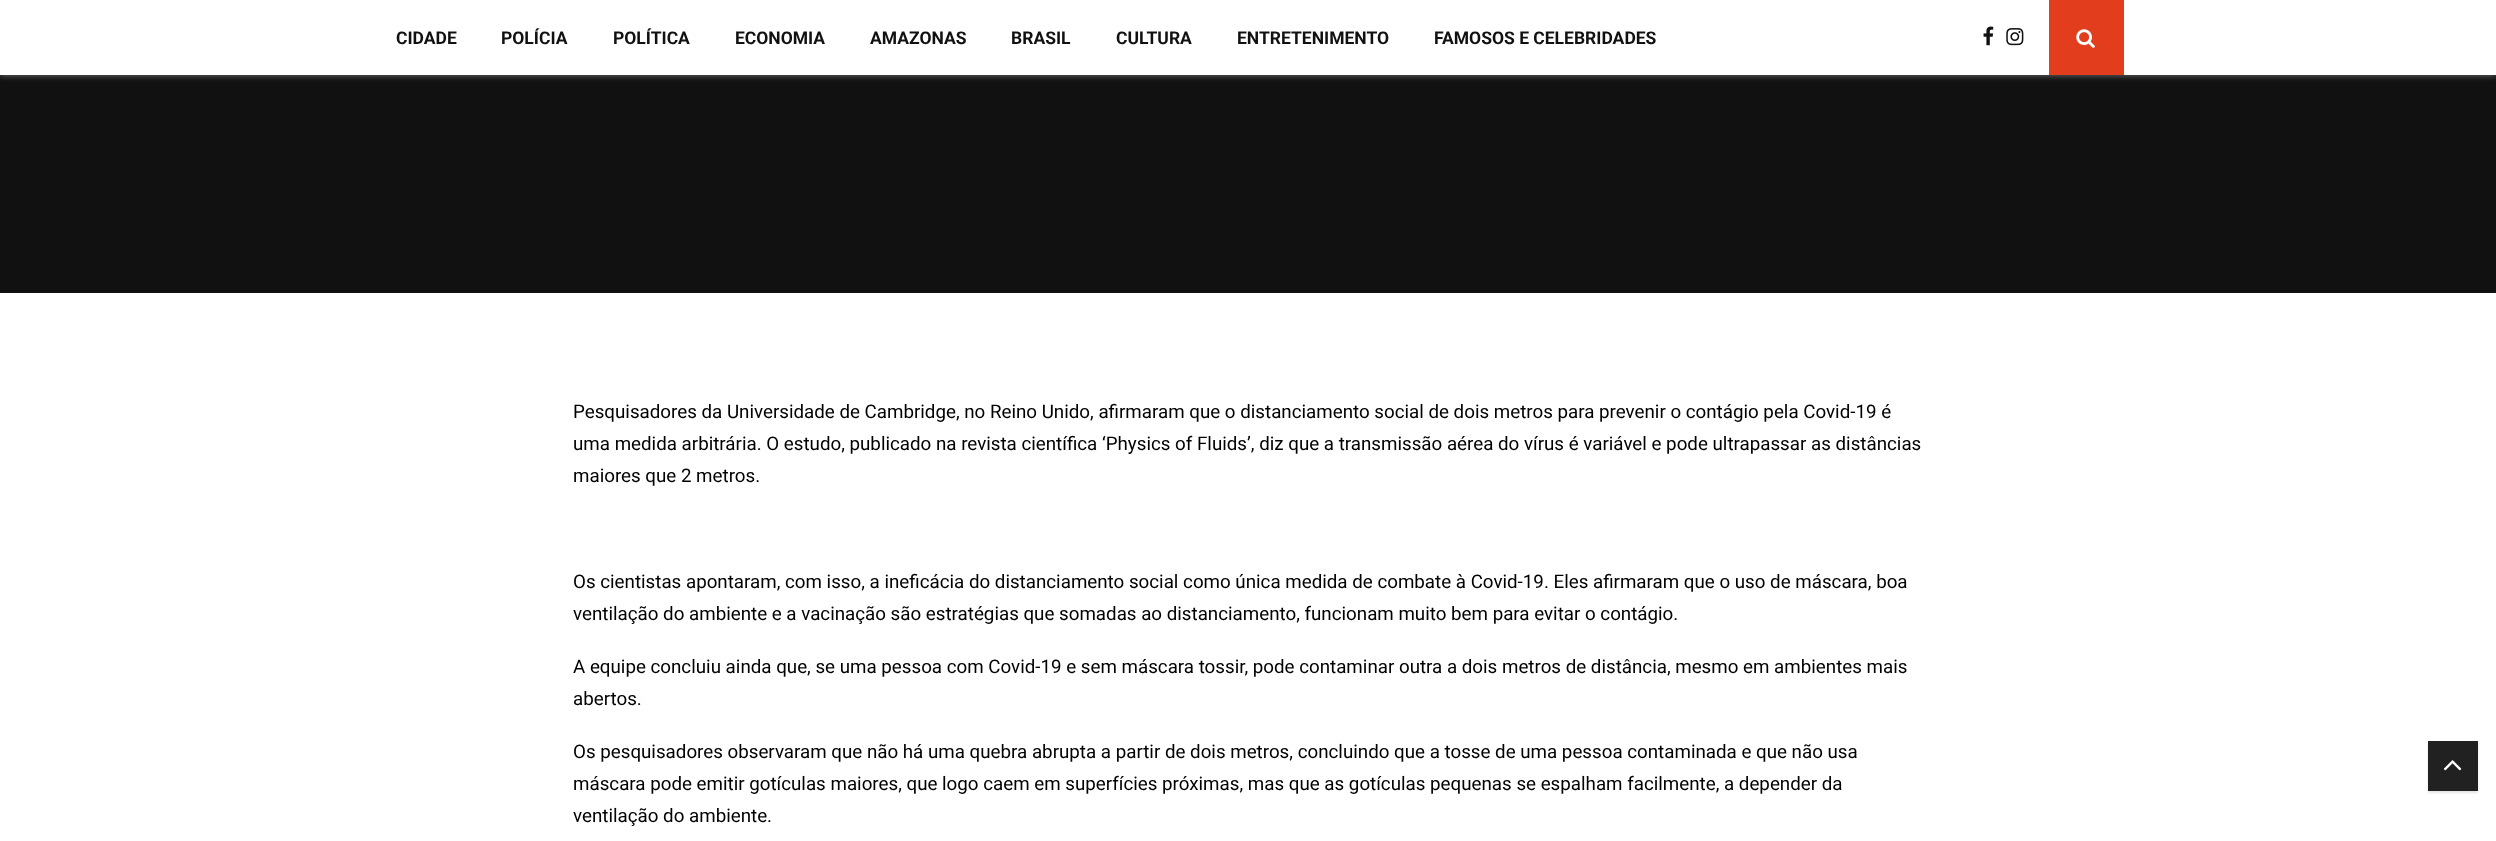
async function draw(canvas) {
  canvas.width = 2496;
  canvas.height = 841;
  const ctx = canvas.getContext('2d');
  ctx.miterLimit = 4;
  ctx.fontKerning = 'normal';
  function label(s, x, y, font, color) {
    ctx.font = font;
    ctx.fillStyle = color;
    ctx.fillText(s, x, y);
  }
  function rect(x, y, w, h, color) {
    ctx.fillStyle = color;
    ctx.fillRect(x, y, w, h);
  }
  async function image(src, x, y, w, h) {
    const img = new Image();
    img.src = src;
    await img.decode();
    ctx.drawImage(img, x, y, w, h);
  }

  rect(0, 0, 2496, 841, '#fff');
  rect(0, 75, 2496, 218, '#111');
  ctx.fillStyle = '#bebebe75';
  ctx.filter = 'blur(3px)';
  ctx.beginPath();
  ctx.rect(0, 1, 2496, 75);
  ctx.fill();
  ctx.filter = 'none';
  rect(0, 0, 2496, 75, '#fff');
  label('CIDADE', 396, 44, 'bold 17.5px Roboto', '#111');
  label('POLÍCIA', 501, 44, 'bold 17.5px Roboto', '#111');
  label('POLÍTICA', 613, 44, 'bold 17.5px Roboto', '#111');
  label('ECONOMIA', 735, 44, 'bold 17.5px Roboto', '#111');
  label('AMAZONAS', 870, 44, 'bold 17.5px Roboto', '#111');
  label('BRASIL', 1011, 44, 'bold 17.5px Roboto', '#111');
  label('CULTURA', 1116, 44, 'bold 17.5px Roboto', '#111');
  label('ENTRETENIMENTO', 1237, 44, 'bold 17.5px Roboto', '#111');
  label('FAMOSOS E CELEBRIDADES', 1434, 44, 'bold 17.5px Roboto', '#111');
  await image('assets/img1.png', 1983, 26, 11, 20);
  await image('assets/img2.png', 2006, 28, 18, 18);
  rect(2049, 0, 75, 75, '#e23e1d');
  await image('assets/img3.png', 2076, 29, 19, 19);
  label('Pesquisadores da Universidade de Cambridge, no Reino Unido, afirmaram que o distanciamento social de dois metros para prevenir o contágio pela Covid-19 é', 573, 418, '18.75px Roboto', '#000');
  label('uma medida arbitrária. O estudo, publicado na revista científica ‘Physics of Fluids’, diz que a transmissão aérea do vírus é variável e pode ultrapassar as distâncias', 573, 450, '18.75px Roboto', '#000');
  label('maiores que 2 metros.', 573, 482, '18.75px Roboto', '#000');
  label('Os cientistas apontaram, com isso, a ineficácia do distanciamento social como única medida de combate à Covid-19. Eles afirmaram que o uso de máscara, boa', 573, 588, '18.75px Roboto', '#000');
  label('ventilação do ambiente e a vacinação são estratégias que somadas ao distanciamento, funcionam muito bem para evitar o contágio.', 573, 620, '18.75px Roboto', '#000');
  label('A equipe concluiu ainda que, se uma pessoa com Covid-19 e sem máscara tossir, pode contaminar outra a dois metros de distância, mesmo em ambientes mais', 573, 673, '18.75px Roboto', '#000');
  label('abertos.', 573, 705, '18.75px Roboto', '#000');
  label('Os pesquisadores observaram que não há uma quebra abrupta a partir de dois metros, concluindo que a tosse de uma pessoa contaminada e que não usa', 573, 758, '18.75px Roboto', '#000');
  label('máscara pode emitir gotículas maiores, que logo caem em superfícies próximas, mas que as gotículas pequenas se espalham facilmente, a depender da', 573, 790, '18.75px Roboto', '#000');
  label('ventilação do ambiente.', 573, 822, '18.75px Roboto', '#000');
  ctx.fillStyle = '#0000001a';
  ctx.filter = 'blur(1px)';
  ctx.beginPath();
  ctx.rect(2428, 743, 50, 50);
  ctx.fill();
  ctx.filter = 'none';
  rect(2428, 741, 50, 50, '#212121');
  await image('assets/img4.png', 2443, 760, 19, 11);
}

draw(document.querySelector('canvas'));
